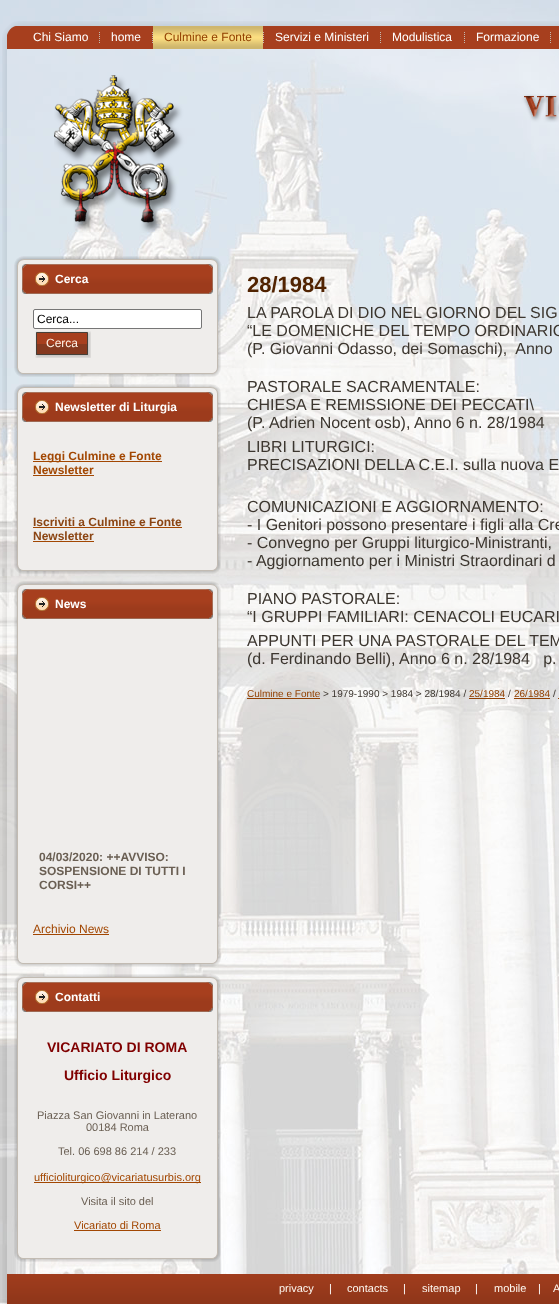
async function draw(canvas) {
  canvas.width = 559;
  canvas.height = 1304;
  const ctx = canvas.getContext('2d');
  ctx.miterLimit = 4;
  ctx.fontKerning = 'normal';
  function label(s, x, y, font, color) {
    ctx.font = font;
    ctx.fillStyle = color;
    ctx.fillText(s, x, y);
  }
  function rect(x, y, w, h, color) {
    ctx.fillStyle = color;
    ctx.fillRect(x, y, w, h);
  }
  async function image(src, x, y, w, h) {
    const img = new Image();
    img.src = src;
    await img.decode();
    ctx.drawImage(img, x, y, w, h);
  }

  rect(0, 0, 559, 1304, '#fff');
  await image('assets/img1.png', 0, 0, 559, 1304);
  await image('assets/img2.png', 2, 21, 41, 41);
  await image('assets/img3.png', 43, 21, 516, 41);
  await image('assets/img4.png', 2, 62, 41, 1219);
  await image('assets/img5.png', 7, 26, 552, 23);
  label('Chi Siamo', 33, 41, '12px Liberation Sans', '#fff');
  await image('assets/img6.png', 99, 32, 1, 11);
  label('home', 111, 41, '12px Liberation Sans', '#fff');
  await image('assets/img6.png', 152, 32, 1, 11);
  await image('assets/img7.png', 153, 26, 110, 23);
  label('Culmine e Fonte', 164, 41, '12px Liberation Sans', '#924001');
  await image('assets/img6.png', 263, 32, 1, 11);
  label('Servizi e Ministeri', 275, 41, '12px Liberation Sans', '#fff');
  await image('assets/img6.png', 380, 32, 1, 11);
  label('Modulistica', 392, 41, '12px Liberation Sans', '#fff');
  await image('assets/img6.png', 464, 32, 1, 11);
  label('Formazione', 476, 41, '12px Liberation Sans', '#fff');
  await image('assets/img6.png', 550, 32, 1, 11);
  rect(43, 62, 516, 1212, '#ffffff33');
  await image('assets/img8.png', 54, 75, 505, 158);
  await image('assets/img9.png', 14, 256, 19, 19);
  await image('assets/img10.png', 33, 256, 169, 8);
  await image('assets/img11.png', 202, 256, 19, 19);
  await image('assets/img12.png', 14, 275, 19, 83);
  await image('assets/img18.png', 202, 275, 19, 83);
  await image('assets/img13.png', 22, 264, 184, 30);
  await image('assets/img14.png', 206, 264, 7, 30);
  await image('assets/img15.png', 35, 272, 14, 14);
  label('Cerca', 55, 283, 'bold 12px Liberation Sans', '#fff');
  rect(33, 294, 169, 64, '#efedeb');
  ctx.fillStyle = '#fff';
  ctx.beginPath();
  ctx.roundRect(33.5, 309.5, 168, 19, 1.5);
  ctx.fill();
  ctx.strokeStyle = '#767676';
  ctx.stroke();
  label('Cerca...', 37, 323, '12px Liberation Sans', '#000');
  await image('assets/img16.png', 35, 331, 49, 27);
  await image('assets/img17.png', 84, 331, 7, 27);
  label('Cerca', 46, 347, '12px Liberation Sans', '#fef3e7');
  await image('assets/img19.png', 14, 358, 19, 19);
  await image('assets/img20.png', 33, 358, 169, 19);
  await image('assets/img21.png', 202, 358, 19, 19);
  await image('assets/img22.png', 14, 384, 19, 19);
  await image('assets/img23.png', 33, 384, 169, 8);
  await image('assets/img24.png', 202, 384, 19, 19);
  await image('assets/img25.png', 14, 403, 19, 152);
  await image('assets/img26.png', 202, 403, 19, 152);
  await image('assets/img13.png', 22, 392, 184, 30);
  await image('assets/img14.png', 206, 392, 7, 30);
  await image('assets/img15.png', 35, 400, 14, 14);
  label('Newsletter di Liturgia', 55, 411, 'bold 12px Liberation Sans', '#fff');
  rect(33, 422, 169, 133, '#efedeb');
  rect(33, 461, 129, 1, '#a24702');
  label('Leggi Culmine e Fonte', 33, 460, 'bold 12px Liberation Sans', '#a24702');
  label('Newsletter', 33, 474, 'bold 12px Liberation Sans', '#a24702');
  rect(33, 475, 61, 1, '#a24702');
  label('Iscriviti a Culmine e Fonte', 33, 526, 'bold 12px Liberation Sans', '#8b4513');
  rect(33, 527, 149, 1, '#a24702');
  label('Newsletter', 33, 540, 'bold 12px Liberation Sans', '#8b4513');
  rect(33, 541, 61, 1, '#a24702');
  await image('assets/img27.png', 14, 555, 19, 19);
  await image('assets/img28.png', 33, 555, 169, 19);
  await image('assets/img29.png', 202, 555, 19, 19);
  await image('assets/img30.png', 14, 581, 19, 19);
  await image('assets/img31.png', 33, 581, 169, 8);
  await image('assets/img32.png', 202, 581, 19, 19);
  await image('assets/img33.png', 14, 600, 19, 348);
  await image('assets/img34.png', 202, 600, 19, 348);
  await image('assets/img13.png', 22, 589, 184, 30);
  await image('assets/img14.png', 206, 589, 7, 30);
  await image('assets/img15.png', 35, 597, 14, 14);
  label('News', 55, 608, 'bold 12px Liberation Sans', '#fff');
  rect(33, 619, 169, 329, '#efedeb');
  label('04/03/2020: ++AVVISO:', 39, 861, 'bold 12px Liberation Sans', '#6a5f53');
  label('SOSPENSIONE DI TUTTI I', 39, 875, 'bold 12px Liberation Sans', '#6a5f53');
  label('CORSI++', 39, 889, 'bold 12px Liberation Sans', '#6a5f53');
  label('Archivio News', 33, 933, '12px Liberation Sans', '#a24702');
  rect(33, 934, 76, 1, '#a24702');
  await image('assets/img35.png', 14, 948, 19, 19);
  await image('assets/img36.png', 33, 948, 169, 19);
  await image('assets/img37.png', 202, 948, 19, 19);
  await image('assets/img38.png', 14, 974, 19, 19);
  await image('assets/img39.png', 33, 974, 169, 8);
  await image('assets/img40.png', 202, 974, 19, 19);
  await image('assets/img41.png', 14, 993, 19, 250);
  await image('assets/img42.png', 202, 993, 19, 250);
  await image('assets/img13.png', 22, 982, 184, 30);
  await image('assets/img14.png', 206, 982, 7, 30);
  await image('assets/img15.png', 35, 990, 14, 14);
  label('Contatti', 55, 1001, 'bold 12px Liberation Sans', '#fff');
  rect(33, 1012, 169, 231, '#efedeb');
  label('VICARIATO DI ROMA', 47, 1052, 'bold 14px Liberation Sans', '#800000');
  label('Ufficio Liturgico', 64, 1080, 'bold 14px Liberation Sans', '#800000');
  label('Piazza San Giovanni in Laterano', 37, 1119, '11px Liberation Sans', '#6a5f53');
  label('00184 Roma', 86, 1131, '11px Liberation Sans', '#6a5f53');
  label('Tel. 06 698 86 214 / 233', 58, 1155, '11px Liberation Sans', '#6a5f53');
  rect(34, 1182, 167, 1, '#a24702');
  label('ufficioliturgico@vicariatusurbis.org', 34, 1181, '11px Liberation Sans', '#a24702');
  label('Visita il sito del', 81, 1205, '11px Liberation Sans', '#6a5f53');
  label('Vicariato di Roma', 74, 1229, '11px Liberation Sans', '#a24702');
  rect(74, 1230, 87, 1, '#a24702');
  await image('assets/img43.png', 14, 1243, 19, 19);
  await image('assets/img44.png', 33, 1243, 169, 19);
  await image('assets/img45.png', 202, 1243, 19, 19);
  label('28/1984', 247, 292, 'bold 22px Liberation Sans', '#512301');
  label('LA PAROLA DI DIO NEL GIORNO DEL SIG', 247, 318, '16px Liberation Sans', '#3c362f');
  label('“LE DOMENICHE DEL TEMPO ORDINARIO', 247, 336, '16px Liberation Sans', '#3c362f');
  label('(P. Giovanni Odasso, dei Somaschi),  Anno', 247, 354, '16px Liberation Sans', '#3c362f');
  label('PASTORALE SACRAMENTALE:', 247, 392, '16px Liberation Sans', '#3c362f');
  label('CHIESA E REMISSIONE DEI PECCATI\\', 247, 410, '16px Liberation Sans', '#3c362f');
  label('(P. Adrien Nocent osb), Anno 6 n. 28/1984', 247, 428, '16px Liberation Sans', '#3c362f');
  label('LIBRI LITURGICI:', 247, 452, '16px Liberation Sans', '#3c362f');
  label('PRECISAZIONI DELLA C.E.I. sulla nuova E', 247, 470, '16px Liberation Sans', '#3c362f');
  label('COMUNICAZIONI E AGGIORNAMENTO:', 247, 512, '16px Liberation Sans', '#3c362f');
  label('- I Genitori possono presentare i figli alla Cre', 247, 530, '16px Liberation Sans', '#3c362f');
  label('- Convegno per Gruppi liturgico-Ministranti,', 247, 548, '16px Liberation Sans', '#3c362f');
  label('- Aggiornamento per i Ministri Straordinari d', 247, 566, '16px Liberation Sans', '#3c362f');
  label('PIANO PASTORALE:', 247, 604, '16px Liberation Sans', '#3c362f');
  label('“I GRUPPI FAMILIARI: CENACOLI EUCARI', 247, 622, '16px Liberation Sans', '#3c362f');
  label('APPUNTI PER UNA PASTORALE DEL TEM', 247, 646, '16px Liberation Sans', '#3c362f');
  label('(d. Ferdinando Belli), Anno 6 n. 28/1984   p.', 247, 664, '16px Liberation Sans', '#3c362f');
  label('Culmine e Fonte', 247, 697, '10px Liberation Sans', '#924001');
  rect(247, 698, 73, 1, '#924001');
  label('> 1979-1990 > 1984 > 28/1984 /', 323, 697, '10px Liberation Sans', '#3c362f');
  label('25/1984', 469, 697, '10px Liberation Sans', '#924001');
  rect(469, 698, 36, 1, '#924001');
  label('/', 508, 697, '10px Liberation Sans', '#3c362f');
  label('26/1984', 514, 697, '10px Liberation Sans', '#924001');
  rect(514, 698, 36, 1, '#924001');
  label('/', 553, 697, '10px Liberation Sans', '#3c362f');
  rect(558, 698, 1, 1, '#924001');
  await image('assets/img46.png', 7, 1274, 552, 30);
  label('privacy', 279, 1292, '11px Liberation Sans', '#fef8f0');
  label('|', 329, 1292, '11px Liberation Sans', '#fff');
  label('contacts', 347, 1292, '11px Liberation Sans', '#fef8f0');
  label('|', 403, 1292, '11px Liberation Sans', '#fff');
  label('sitemap', 422, 1292, '11px Liberation Sans', '#fef8f0');
  label('|', 475, 1292, '11px Liberation Sans', '#fff');
  label('mobile', 494, 1292, '11px Liberation Sans', '#fef8f0');
  label('|', 538, 1292, '11px Liberation Sans', '#fff');
  label('A', 553, 1292, '11px Liberation Sans', '#fef8f0');
  await image('assets/img47.png', 2, 1281, 5, 23);
}

draw(document.querySelector('canvas'));
